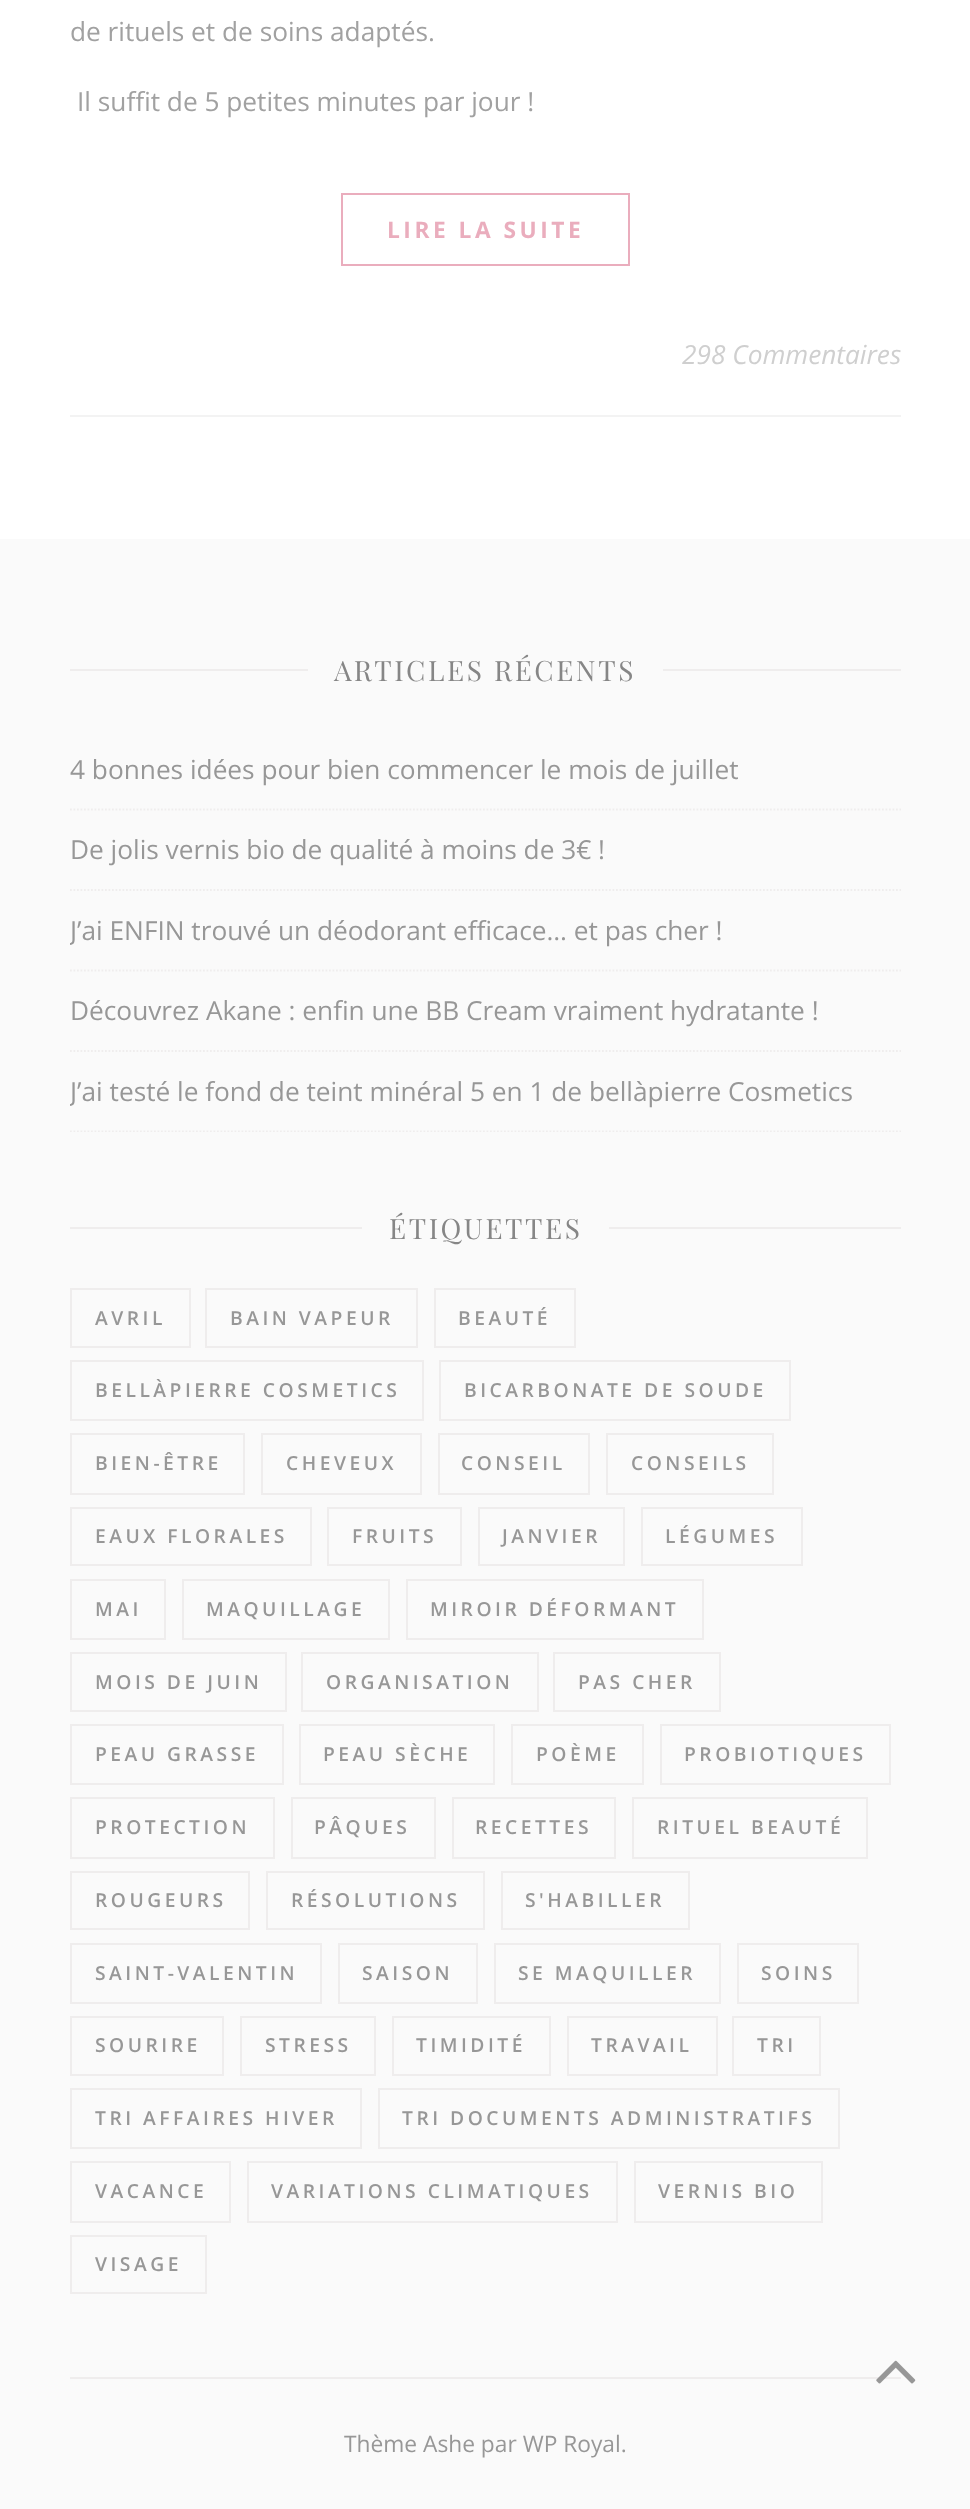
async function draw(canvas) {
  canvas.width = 970;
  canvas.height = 2509;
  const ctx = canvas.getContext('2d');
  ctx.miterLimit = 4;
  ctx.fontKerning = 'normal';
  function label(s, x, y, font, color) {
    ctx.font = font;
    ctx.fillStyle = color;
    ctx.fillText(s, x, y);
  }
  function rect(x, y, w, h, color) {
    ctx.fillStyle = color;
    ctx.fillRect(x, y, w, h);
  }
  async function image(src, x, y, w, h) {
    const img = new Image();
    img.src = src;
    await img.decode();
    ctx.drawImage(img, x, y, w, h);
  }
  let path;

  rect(0, 0, 970, 2509, '#fff');
  label('de rituels et de soins adaptés.', 70, 41, '26.25px Open Sans', '#a1a1a1');
  label('Il suffit de 5 petites minutes par jour !', 77, 111, '26.25px Open Sans', '#a1a1a1');
  ctx.strokeStyle = '#eaadbd';
  ctx.lineWidth = 2;
  ctx.strokeRect(342, 194, 287, 71);
  ctx.letterSpacing = '3.5px';
  label('LIRE LA SUITE', 387, 238, 'bold 22.75px Open Sans', '#eaadbd');
  rect(70, 415, 831, 2, '#f3f3f3');
  ctx.letterSpacing = '0px';
  label('298 Commentaires', 682, 364, 'italic 26.25px Open Sans', '#cfcfcf');
  rect(0, 539, 970, 1970, '#fafafa');
  rect(70, 2377, 831, 2, '#efeded');
  rect(70, 669, 238, 2, '#efeded');
  ctx.letterSpacing = '2.6px';
  label('ARTICLES RÉCENTS', 334, 681, '28px Playfair Display', '#868686');
  rect(663, 669, 238, 2, '#efeded');
  path = new Path2D('M70 809.5H901');
  ctx.strokeStyle = '#efeded';
  ctx.lineWidth = 1.8;
  ctx.setLineDash([1.75, 1.75]);
  ctx.stroke(path);
  ctx.letterSpacing = '0px';
  label('4 bonnes idées pour bien commencer le mois de juillet', 70, 779, '26.25px Open Sans', '#979797');
  path = new Path2D('M70 890H901');
  ctx.stroke(path);
  label('De jolis vernis bio de qualité à moins de 3€ !', 70, 859, '26.25px Open Sans', '#979797');
  path = new Path2D('M70 970.5H901');
  ctx.stroke(path);
  ctx.save();
  ctx.beginPath();
  ctx.rect(70, 644, 831, 488);
  ctx.clip();
  label('J’ai ENFIN trouvé un déodorant efficace… et pas cher !', 70, 940, '26.25px Open Sans', '#979797');
  ctx.restore();
  path = new Path2D('M70 1051H901');
  ctx.stroke(path);
  label('Découvrez Akane : enfin une BB Cream vraiment hydratante !', 70, 1020, '26.25px Open Sans', '#979797');
  ctx.save();
  ctx.beginPath();
  ctx.rect(70, 644, 831, 488);
  ctx.clip();
  path = new Path2D('M70 1131.5H901');
  ctx.stroke(path);
  label('J’ai testé le fond de teint minéral 5 en 1 de bellàpierre Cosmetics', 70, 1101, '26.25px Open Sans', '#979797');
  ctx.restore();
  rect(70, 1227, 292, 2, '#efeded');
  ctx.letterSpacing = '2.6px';
  label('ÉTIQUETTES', 389, 1239, '28px Playfair Display', '#868686');
  rect(609, 1227, 292, 2, '#efeded');
  ctx.lineWidth = 2;
  ctx.setLineDash([]);
  ctx.strokeRect(71, 1289, 119, 58);
  ctx.letterSpacing = '3.5px';
  label('AVRIL', 95, 1325, '600 19.25px Open Sans', '#979797');
  ctx.strokeRect(206, 1289, 211, 58);
  label('BAIN VAPEUR', 230, 1325, '600 19.25px Open Sans', '#979797');
  ctx.strokeRect(435, 1289, 140, 58);
  label('BEAUTÉ', 458, 1325, '600 19.25px Open Sans', '#979797');
  ctx.strokeRect(71, 1361, 352, 59);
  label('BELLÀPIERRE COSMETICS', 95, 1397, '600 19.25px Open Sans', '#979797');
  ctx.strokeRect(440, 1361, 350, 59);
  label('BICARBONATE DE SOUDE', 464, 1397, '600 19.25px Open Sans', '#979797');
  ctx.strokeRect(71, 1434, 173, 60);
  label('BIEN-ÊTRE', 95, 1470, '600 19.25px Open Sans', '#979797');
  ctx.strokeRect(262, 1434, 159, 60);
  label('CHEVEUX', 286, 1470, '600 19.25px Open Sans', '#979797');
  ctx.strokeRect(439, 1434, 150, 60);
  label('CONSEIL', 461, 1470, '600 19.25px Open Sans', '#979797');
  ctx.strokeRect(607, 1434, 166, 60);
  label('CONSEILS', 631, 1470, '600 19.25px Open Sans', '#979797');
  ctx.strokeRect(71, 1508, 240, 57);
  label('EAUX FLORALES', 95, 1543, '600 19.25px Open Sans', '#979797');
  ctx.strokeRect(328, 1508, 133, 57);
  label('FRUITS', 352, 1543, '600 19.25px Open Sans', '#979797');
  ctx.strokeRect(479, 1508, 145, 57);
  label('JANVIER', 502, 1543, '600 19.25px Open Sans', '#979797');
  ctx.strokeRect(642, 1508, 160, 57);
  label('LÉGUMES', 665, 1543, '600 19.25px Open Sans', '#979797');
  ctx.strokeRect(71, 1580, 94, 59);
  label('MAI', 95, 1616, '600 19.25px Open Sans', '#979797');
  ctx.strokeRect(183, 1580, 206, 59);
  label('MAQUILLAGE', 206, 1616, '600 19.25px Open Sans', '#979797');
  ctx.strokeRect(407, 1580, 296, 59);
  label('MIROIR DÉFORMANT', 430, 1616, '600 19.25px Open Sans', '#979797');
  ctx.strokeRect(71, 1653, 215, 58);
  label('MOIS DE JUIN', 95, 1689, '600 19.25px Open Sans', '#979797');
  ctx.strokeRect(302, 1653, 236, 58);
  label('ORGANISATION', 326, 1689, '600 19.25px Open Sans', '#979797');
  ctx.strokeRect(554, 1653, 166, 58);
  label('PAS CHER', 578, 1689, '600 19.25px Open Sans', '#979797');
  ctx.strokeRect(71, 1725, 212, 59);
  label('PEAU GRASSE', 95, 1761, '600 19.25px Open Sans', '#979797');
  ctx.strokeRect(300, 1725, 194, 59);
  label('PEAU SÈCHE', 323, 1761, '600 19.25px Open Sans', '#979797');
  ctx.strokeRect(512, 1725, 131, 59);
  label('POÈME', 536, 1761, '600 19.25px Open Sans', '#979797');
  ctx.strokeRect(661, 1725, 229, 59);
  label('PROBIOTIQUES', 684, 1761, '600 19.25px Open Sans', '#979797');
  ctx.strokeRect(71, 1798, 203, 60);
  label('PROTECTION', 95, 1834, '600 19.25px Open Sans', '#979797');
  ctx.strokeRect(292, 1798, 143, 60);
  label('PÂQUES', 314, 1834, '600 19.25px Open Sans', '#979797');
  ctx.strokeRect(453, 1798, 162, 60);
  label('RECETTES', 475, 1834, '600 19.25px Open Sans', '#979797');
  ctx.strokeRect(633, 1798, 234, 60);
  label('RITUEL BEAUTÉ', 657, 1834, '600 19.25px Open Sans', '#979797');
  ctx.strokeRect(71, 1872, 178, 57);
  label('ROUGEURS', 95, 1907, '600 19.25px Open Sans', '#979797');
  ctx.strokeRect(267, 1872, 217, 57);
  label('RÉSOLUTIONS', 291, 1907, '600 19.25px Open Sans', '#979797');
  ctx.strokeRect(502, 1872, 187, 57);
  label('S\'HABILLER', 525, 1907, '600 19.25px Open Sans', '#979797');
  ctx.strokeRect(71, 1944, 250, 59);
  label('SAINT-VALENTIN', 95, 1980, '600 19.25px Open Sans', '#979797');
  ctx.strokeRect(339, 1944, 138, 59);
  label('SAISON', 362, 1980, '600 19.25px Open Sans', '#979797');
  ctx.strokeRect(495, 1944, 225, 59);
  label('SE MAQUILLER', 518, 1980, '600 19.25px Open Sans', '#979797');
  ctx.strokeRect(738, 1944, 120, 59);
  label('SOINS', 761, 1980, '600 19.25px Open Sans', '#979797');
  ctx.strokeRect(71, 2017, 152, 58);
  label('SOURIRE', 95, 2052, '600 19.25px Open Sans', '#979797');
  ctx.strokeRect(241, 2017, 134, 58);
  label('STRESS', 265, 2052, '600 19.25px Open Sans', '#979797');
  ctx.strokeRect(393, 2017, 157, 58);
  label('TIMIDITÉ', 416, 2052, '600 19.25px Open Sans', '#979797');
  ctx.strokeRect(568, 2017, 149, 58);
  label('TRAVAIL', 591, 2052, '600 19.25px Open Sans', '#979797');
  ctx.strokeRect(733, 2017, 87, 58);
  label('TRI', 757, 2052, '600 19.25px Open Sans', '#979797');
  ctx.strokeRect(71, 2089, 290, 59);
  label('TRI AFFAIRES HIVER', 95, 2125, '600 19.25px Open Sans', '#979797');
  ctx.strokeRect(379, 2089, 460, 59);
  label('TRI DOCUMENTS ADMINISTRATIFS', 402, 2125, '600 19.25px Open Sans', '#979797');
  ctx.strokeRect(71, 2162, 159, 60);
  label('VACANCE', 95, 2198, '600 19.25px Open Sans', '#979797');
  ctx.strokeRect(248, 2162, 369, 60);
  label('VARIATIONS CLIMATIQUES', 271, 2198, '600 19.25px Open Sans', '#979797');
  ctx.strokeRect(635, 2162, 187, 60);
  label('VERNIS BIO', 658, 2198, '600 19.25px Open Sans', '#979797');
  ctx.strokeRect(71, 2236, 135, 57);
  label('VISAGE', 95, 2271, '600 19.25px Open Sans', '#979797');
  ctx.letterSpacing = '0px';
  label('Thème Ashe par WP Royal.', 344, 2452, '22.75px Open Sans', '#979797');
  await image('assets/img1.png', 876, 2360, 40, 24);
}

draw(document.querySelector('canvas'));
